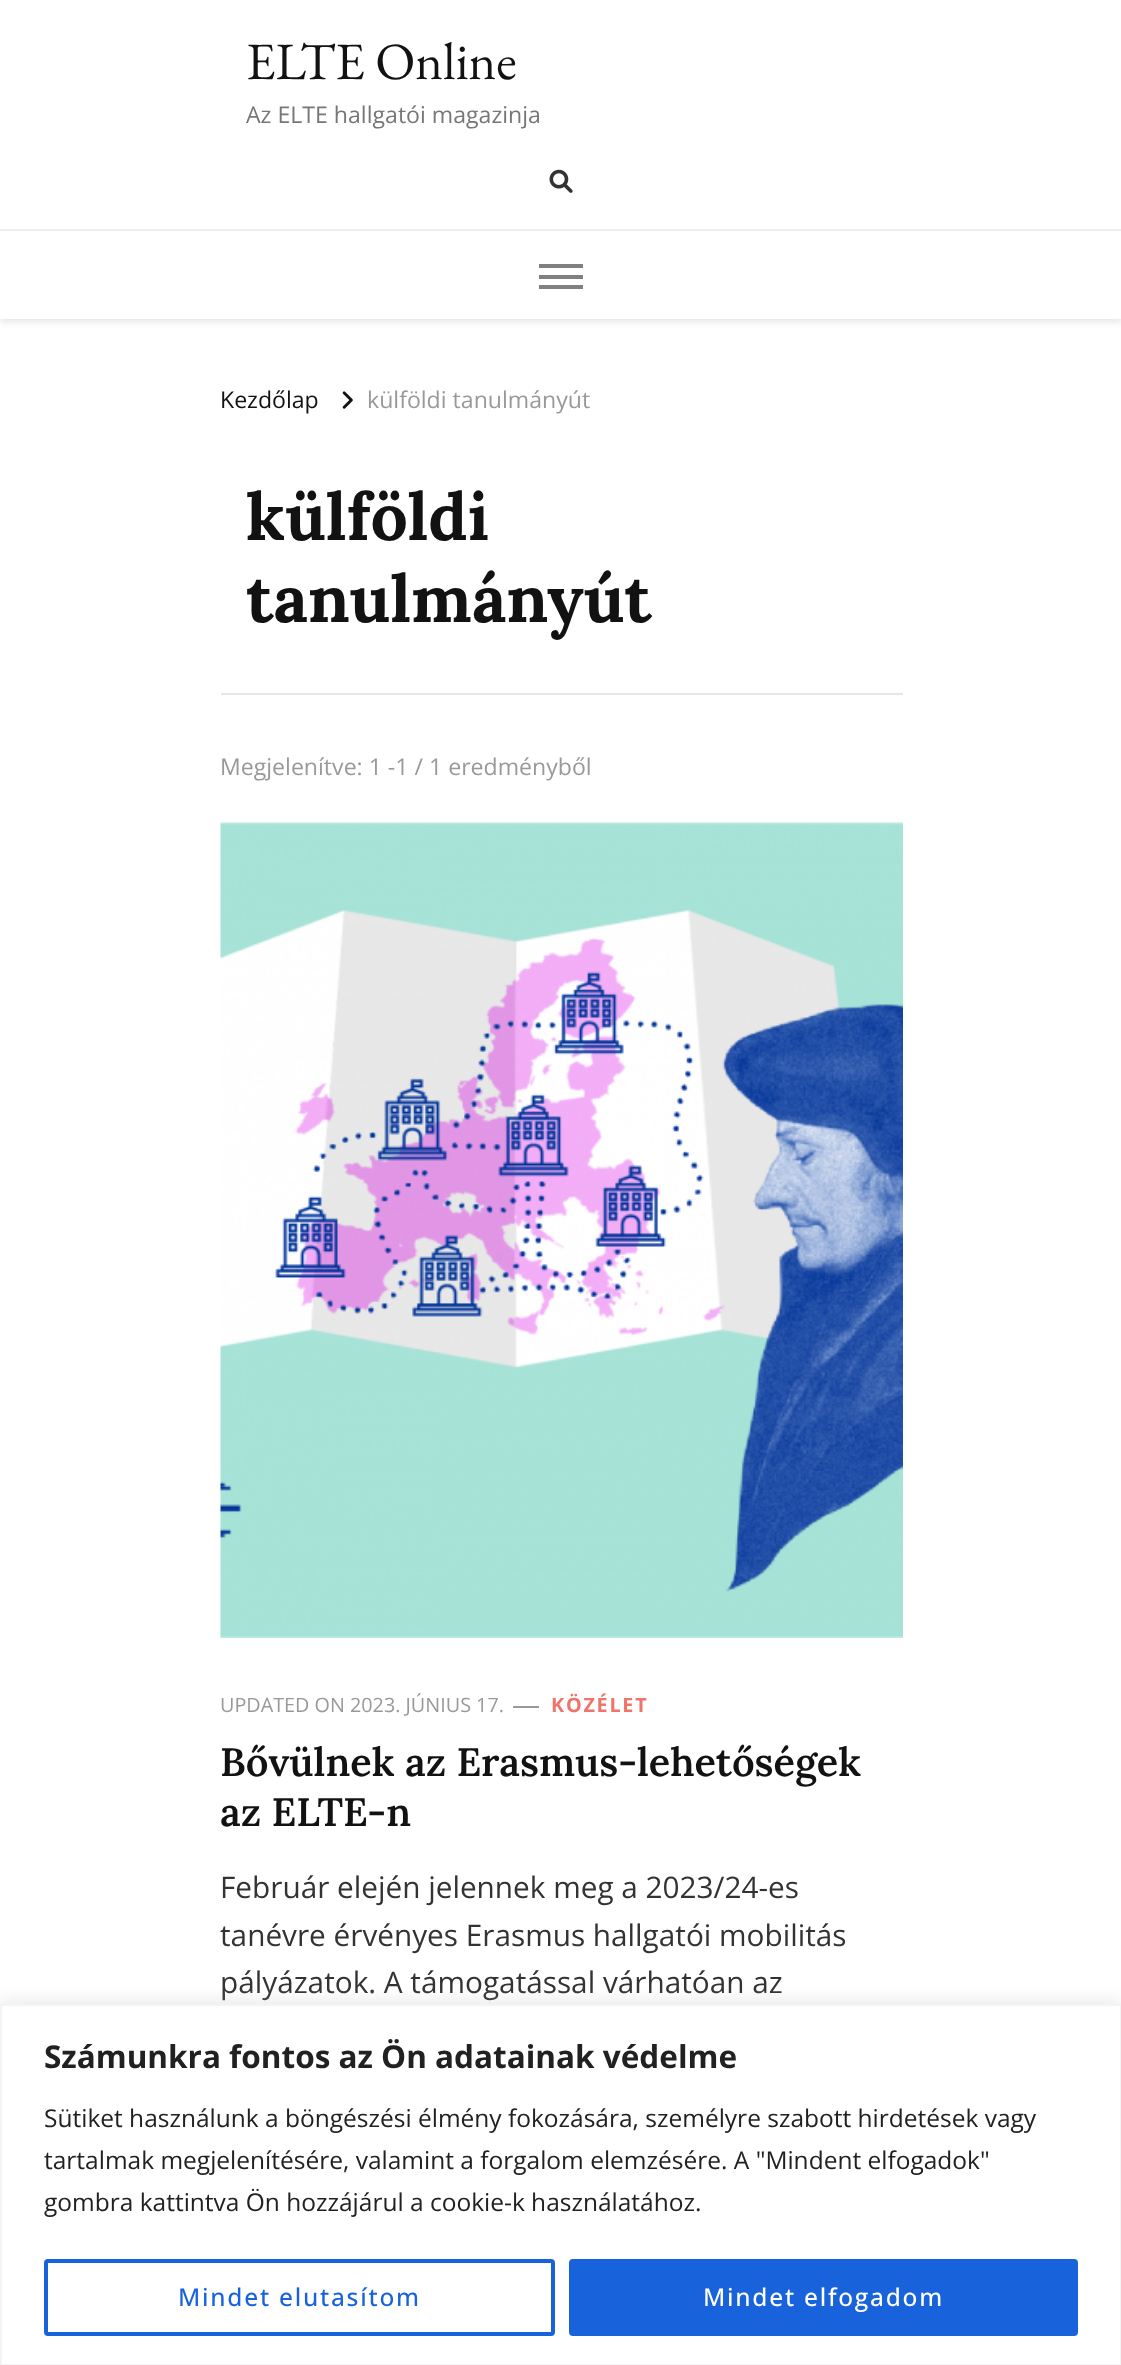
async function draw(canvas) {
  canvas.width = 1121;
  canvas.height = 2365;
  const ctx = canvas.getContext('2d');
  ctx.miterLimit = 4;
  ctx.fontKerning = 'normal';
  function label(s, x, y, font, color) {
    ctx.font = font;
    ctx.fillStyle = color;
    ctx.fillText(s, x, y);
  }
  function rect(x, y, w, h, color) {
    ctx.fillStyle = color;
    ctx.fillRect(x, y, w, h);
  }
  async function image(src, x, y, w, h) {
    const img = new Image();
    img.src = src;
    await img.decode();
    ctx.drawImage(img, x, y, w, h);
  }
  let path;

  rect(0, 0, 1121, 2365, '#fff');
  ctx.save();
  path = new Path2D('M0 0H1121V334H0ZM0 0H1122V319H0Z');
  ctx.clip(path, 'evenodd');
  ctx.fillStyle = '#0000001a';
  ctx.filter = 'blur(3.5px)';
  ctx.beginPath();
  ctx.rect(0, 4, 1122, 318);
  ctx.fill();
  ctx.filter = 'none';
  ctx.restore();
  label('ELTE Online', 246, 79, '52.5px EB Garamond', '#121212');
  label('Az ELTE hallgatói magazinja', 246, 123, '23.1px Open Sans', '#777');
  await image('assets/img1.png', 549, 169, 24, 24);
  rect(0, 229, 1121, 2, '#ededed');
  rect(539, 264, 44, 4, '#808080');
  rect(539, 275, 44, 4, '#808080');
  rect(539, 285, 44, 4, '#808080');
  label('Kezdőlap', 220, 408, '23.1px Open Sans', '#121212');
  await image('assets/img2.png', 342, 391, 11, 18);
  label('külföldi tanulmányút', 367, 408, '23.1px Open Sans', '#999');
  rect(221, 693, 682, 2, '#e6e6e6');
  label('külföldi', 246, 540, 'bold 66px Lora', '#121212');
  label('tanulmányút', 246, 622, 'bold 66px Lora', '#121212');
  label('Megjelenítve: 1 -1 / 1 eredményből', 220, 775, '23.1px Open Sans', '#999');
  await image('assets/img3.png', 220, 822, 683, 816);
  label('UPDATED ON 2023. JÚNIUS 17.', 220, 1712, '19.8px Open Sans', '#999');
  rect(513, 1706, 26, 2, '#999');
  ctx.letterSpacing = '1.75px';
  label('KÖZÉLET', 551, 1712, 'bold 19.8px Open Sans', '#ef746a');
  ctx.letterSpacing = '0px';
  label('Bővülnek az Erasmus-lehetőségek', 220, 1776, '600 39.7px Lora', '#121212');
  label('az ELTE-n', 220, 1826, '600 39.7px Lora', '#121212');
  label('Február elején jelennek meg a 2023/24-es', 220, 1898, '29.75px Open Sans', '#333');
  label('tanévre érvényes Erasmus hallgatói mobilitás', 220, 1946, '29.75px Open Sans', '#333');
  label('pályázatok. A támogatással várhatóan az', 220, 1993, '29.75px Open Sans', '#333');
  ctx.fillStyle = '#acabab4d';
  ctx.filter = 'blur(9px)';
  ctx.beginPath();
  ctx.rect(0, 2002, 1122, 362);
  ctx.fill();
  ctx.filter = 'none';
  ctx.fillStyle = '#fff';
  ctx.beginPath();
  ctx.rect(1, 2005, 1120, 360);
  ctx.fill();
  ctx.strokeStyle = '#f4f4f4';
  ctx.lineWidth = 2;
  ctx.stroke();
  label('Számunkra fontos az Ön adatainak védelme', 44, 2068, 'bold 31.5px Open Sans', '#212121');
  label('Sütiket használunk a böngészési élmény fokozására, személyre szabott hirdetések vagy', 44, 2127, '24.5px Open Sans', '#212121');
  label('tartalmak megjelenítésére, valamint a forgalom elemzésére. A "Mindent elfogadok"', 44, 2169, '24.5px Open Sans', '#212121');
  label('gombra kattintva Ön hozzájárul a cookie-k használatához.', 44, 2211, '24.5px Open Sans', '#212121');
  ctx.beginPath();
  ctx.roundRect(46, 2261, 507, 73, 2);
  ctx.strokeStyle = '#1863dc';
  ctx.lineWidth = 4;
  ctx.stroke();
  ctx.letterSpacing = '1.75px';
  label('Mindet elutasítom', 178, 2306, '500 24.5px Open Sans', '#1863dc');
  ctx.beginPath();
  ctx.roundRect(571, 2261, 505, 73, 2);
  ctx.fill();
  ctx.stroke();
  label('Mindet elfogadom', 703, 2306, '500 24.5px Open Sans', '#fff');
}

draw(document.querySelector('canvas'));
